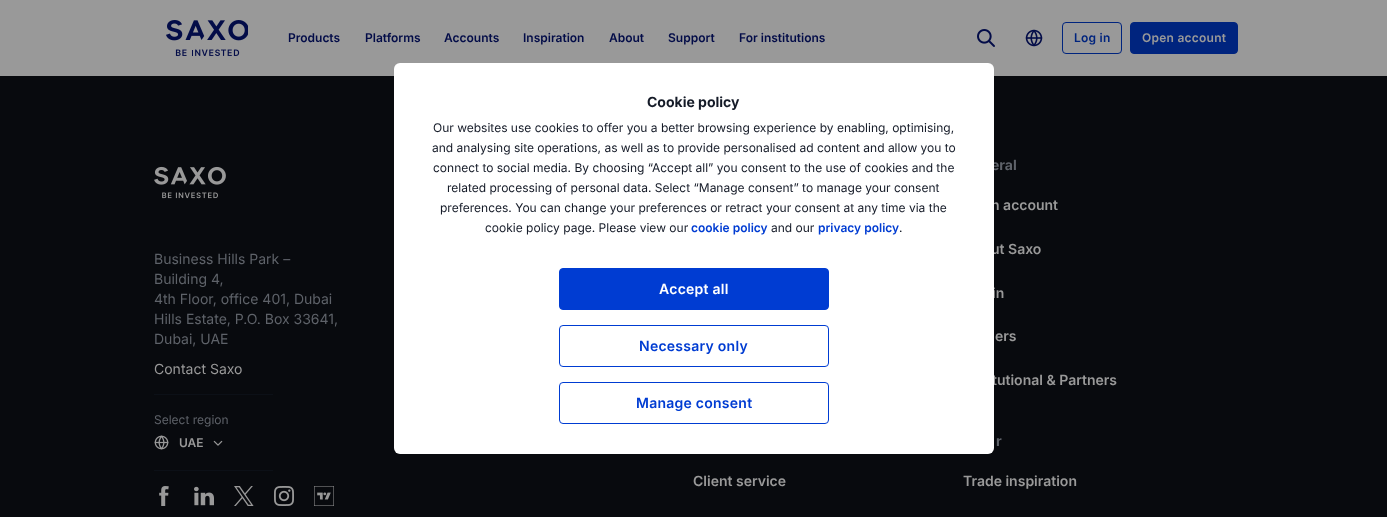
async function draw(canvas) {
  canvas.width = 1387;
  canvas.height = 517;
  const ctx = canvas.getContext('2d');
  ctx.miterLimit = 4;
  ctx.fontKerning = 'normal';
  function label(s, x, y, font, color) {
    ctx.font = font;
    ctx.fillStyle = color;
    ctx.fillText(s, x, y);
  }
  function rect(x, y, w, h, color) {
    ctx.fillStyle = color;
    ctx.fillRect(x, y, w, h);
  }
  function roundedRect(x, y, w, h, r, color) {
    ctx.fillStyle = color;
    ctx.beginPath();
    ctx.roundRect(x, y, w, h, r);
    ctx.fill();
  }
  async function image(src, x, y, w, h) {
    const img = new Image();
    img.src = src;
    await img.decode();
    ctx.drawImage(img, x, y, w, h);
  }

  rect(0, 0, 1387, 517, '#999');
  await image('assets/img1.png', 166, 20, 82, 36);
  label('Products', 288, 42, '600 12px Inter', '#030c48');
  label('Platforms', 365, 42, '600 12px Inter', '#030c48');
  label('Accounts', 444, 42, '600 12px Inter', '#030c48');
  label('Inspiration', 523, 42, '600 12px Inter', '#030c48');
  label('About', 609, 42, '600 12px Inter', '#030c48');
  label('Support', 668, 42, '600 12px Inter', '#030c48');
  label('For institutions', 739, 42, '600 12px Inter', '#030c48');
  await image('assets/img2.png', 977, 29, 18, 18);
  await image('assets/img3.png', 1025, 29, 18, 18);
  ctx.beginPath();
  ctx.roundRect(1062.5, 22.5, 59, 31, 3.5);
  ctx.strokeStyle = '#00247e';
  ctx.stroke();
  ctx.letterSpacing = '0.25px';
  label('Log in', 1074, 42, '600 12px Inter', '#00247e');
  ctx.beginPath();
  ctx.roundRect(1130.5, 22.5, 107, 31, 3.5);
  ctx.fill();
  ctx.stroke();
  label('Open account', 1142, 42, '600 12px Inter', '#999');
  rect(0, 76, 1387, 441, '#080a0e');
  ctx.letterSpacing = '0px';
  label('eral', 991, 170, 'bold 14px Inter', '#5e6269');
  label('n account', 991, 210, '600 14px Inter', '#999');
  label('ut Saxo', 991, 254, '600 14px Inter', '#999');
  label('in', 992, 298, '600 14px Inter', '#999');
  label('tutional & Partners', 992, 385, '600 14px Inter', '#999');
  roundedRect(394, 63, 600, 391, 6, '#fff');
  label('Cookie policy', 647, 107, 'bold 14px Inter', '#141a27');
  label('Our websites use cookies to offer you a better browsing experience by enabling, optimising,', 433, 132, '12px Inter', '#141a27');
  label('and analysing site operations, as well as to provide personalised ad content and allow you to', 432, 152, '12px Inter', '#141a27');
  label('connect to social media. By choosing “Accept all” you consent to the use of cookies and the', 433, 172, '12px Inter', '#141a27');
  label('related processing of personal data. Select “Manage consent” to manage your consent', 447, 192, '12px Inter', '#141a27');
  label('preferences. You can change your preferences or retract your consent at any time via the', 440, 212, '12px Inter', '#141a27');
  label('cookie policy page. Please view our', 485, 232, '12px Inter', '#141a27');
  label('cookie policy', 691, 232, '600 12px Inter', '#003cd2');
  label('and our', 771, 232, '12px Inter', '#141a27');
  label('privacy policy', 818, 232, '600 12px Inter', '#003cd2');
  label('.', 899, 232, '12px Inter', '#141a27');
  ctx.fillStyle = '#003cd2';
  ctx.beginPath();
  ctx.roundRect(559.5, 268.5, 269, 41, 3.5);
  ctx.fill();
  ctx.strokeStyle = '#003cd2';
  ctx.stroke();
  ctx.letterSpacing = '0.25px';
  label('Accept all', 659, 294, '600 14px Inter', '#fff');
  ctx.beginPath();
  ctx.roundRect(559.5, 325.5, 269, 41, 3.5);
  ctx.stroke();
  label('Necessary only', 639, 351, '600 14px Inter', '#003cd2');
  ctx.beginPath();
  ctx.roundRect(559.5, 382.5, 269, 41, 3.5);
  ctx.stroke();
  label('Manage consent', 636, 408, '600 14px Inter', '#003cd2');
  await image('assets/img4.png', 154, 166, 72, 33);
  ctx.letterSpacing = '0px';
  label('Business Hills Park –', 154, 264, '14px Inter', '#5e6269');
  label('Building 4,', 154, 284, '14px Inter', '#5e6269');
  label('4th Floor, office 401, Dubai', 154, 304, '14px Inter', '#5e6269');
  label('Hills Estate, P.O. Box 33641,', 154, 324, '14px Inter', '#5e6269');
  label('Dubai, UAE', 154, 344, '14px Inter', '#5e6269');
  label('Contact Saxo', 154, 374, '14px Inter', '#999');
  rect(154, 394, 119, 1, '#0c1017');
  rect(154, 470, 119, 1, '#0c1017');
  label('Select region', 154, 424, '12px Inter', '#5e6269');
  await image('assets/img5.png', 154, 435, 15, 15);
  label('UAE', 179, 447, '600 12px Inter', '#999');
  await image('assets/img6.png', 213, 440, 10, 6);
  await image('assets/img7.png', 159, 486, 10, 20);
  await image('assets/img8.png', 194, 486, 20, 20);
  await image('assets/img9.png', 234, 486, 20, 20);
  await image('assets/img10.png', 274, 486, 20, 20);
  await image('assets/img11.png', 314, 486, 20, 20);
  label('Client service', 693, 486, '600 14px Inter', '#999');
  label('ers', 995, 341, '600 14px Inter', '#999');
  label('r', 996, 446, 'bold 14px Inter', '#5e6269');
  label('Trade inspiration', 963, 486, '600 14px Inter', '#999');
}

draw(document.querySelector('canvas'));
